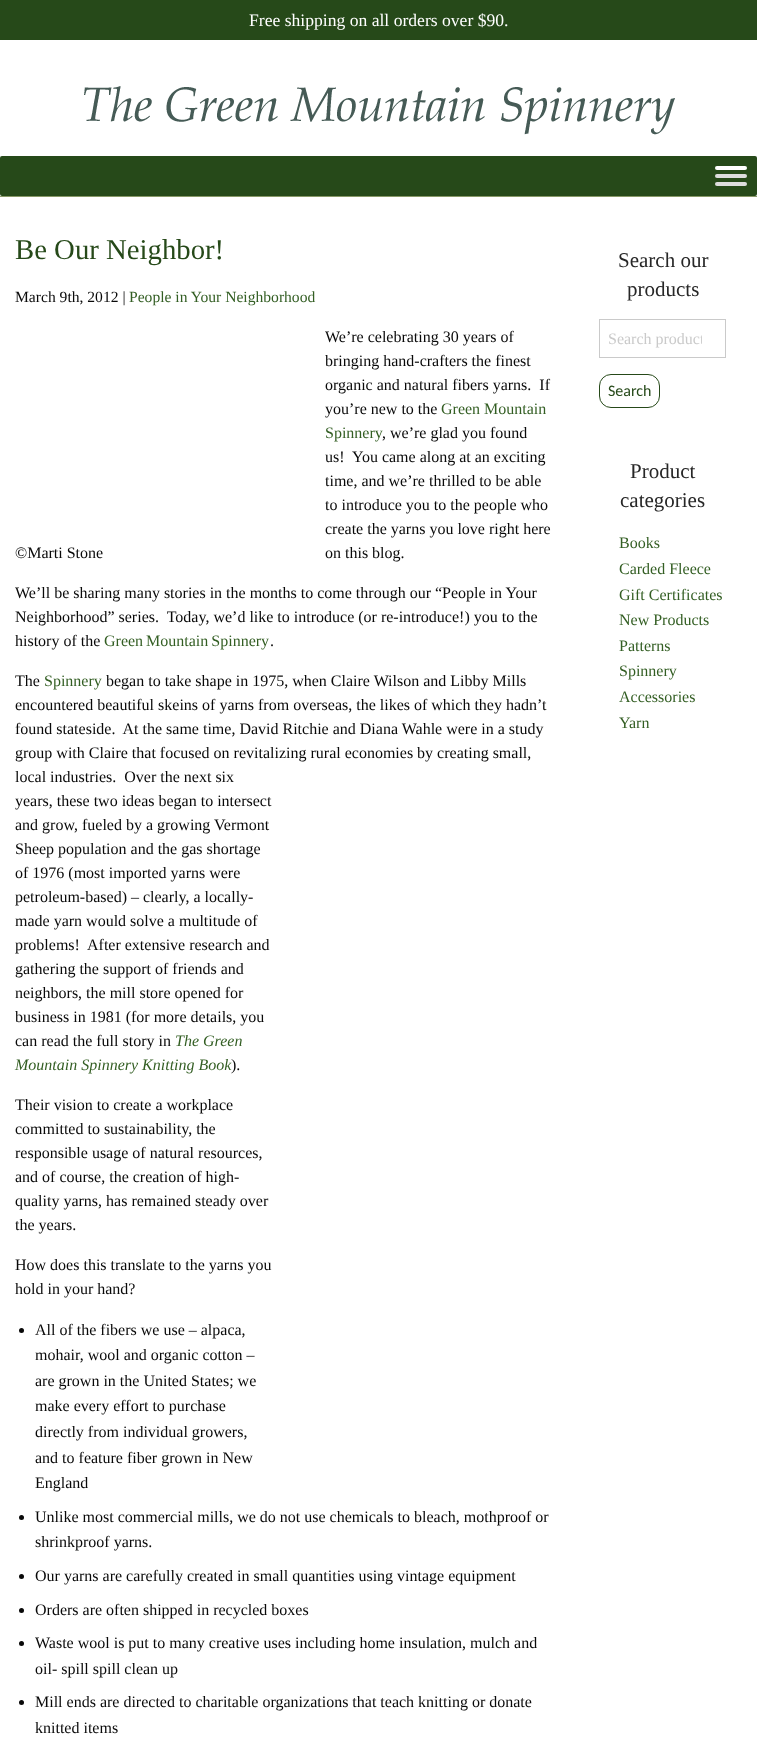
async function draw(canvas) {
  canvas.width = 757;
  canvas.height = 1757;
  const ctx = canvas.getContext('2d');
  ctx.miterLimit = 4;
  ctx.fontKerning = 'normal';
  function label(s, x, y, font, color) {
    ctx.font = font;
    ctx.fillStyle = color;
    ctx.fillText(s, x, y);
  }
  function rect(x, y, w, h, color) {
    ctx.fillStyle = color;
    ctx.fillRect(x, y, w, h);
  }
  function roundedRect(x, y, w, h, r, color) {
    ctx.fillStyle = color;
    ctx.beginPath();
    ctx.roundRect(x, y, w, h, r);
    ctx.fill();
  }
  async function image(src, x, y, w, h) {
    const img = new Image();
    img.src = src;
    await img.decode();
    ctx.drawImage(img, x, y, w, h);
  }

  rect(0, 0, 757, 1757, '#fff');
  rect(0, 0, 757, 40, '#264919');
  label('Free shipping on all orders over $90.', 249, 26, '17.6px Liberation Serif', '#fff');
  await image('assets/img1.png', 84, 86, 591, 49);
  rect(0, 196, 757, 1, '#889867');
  roundedRect(0, 156, 757, 40, 2, '#264919');
  roundedRect(715, 166, 32, 4, 2, '#fff');
  roundedRect(715, 174, 32, 4, 2, '#ddd');
  roundedRect(715, 182, 32, 4, 2, '#ddd');
  label('Be Our Neighbor!', 15, 259, '28.75px Liberation Serif', '#264919');
  label('March 9th, 2012 |', 15, 302, '15.6px Liberation Serif', '#090909');
  label('People in Your Neighborhood', 129, 302, '15.6px Liberation Serif', '#335e23');
  label('©Marti Stone', 15, 558, '16px Liberation Serif', '#090909');
  label('We’re celebrating 30 years of', 325, 342, '16px Liberation Serif', '#090909');
  label('bringing hand-crafters the finest', 325, 366, '16px Liberation Serif', '#090909');
  label('organic and natural fibers yarns.  If', 325, 390, '16px Liberation Serif', '#090909');
  label('you’re new to the', 325, 414, '16px Liberation Serif', '#090909');
  label('Green Mountain', 441, 414, '16px Liberation Serif', '#335e23');
  label('Spinnery', 325, 438, '16px Liberation Serif', '#335e23');
  label(', we’re glad you found', 382, 438, '16px Liberation Serif', '#090909');
  label('us!  You came along at an exciting', 325, 462, '16px Liberation Serif', '#090909');
  label('time, and we’re thrilled to be able', 325, 486, '16px Liberation Serif', '#090909');
  label('to introduce you to the people who', 325, 510, '16px Liberation Serif', '#090909');
  label('create the yarns you love right here', 325, 534, '16px Liberation Serif', '#090909');
  label('on this blog.', 325, 558, '16px Liberation Serif', '#090909');
  label('We’ll be sharing many stories in the months to come through our “People in Your', 15, 598, '16px Liberation Serif', '#090909');
  label('Neighborhood” series.  Today, we’d like to introduce (or re-introduce!) you to the', 15, 622, '16px Liberation Serif', '#090909');
  label('history of the', 15, 646, '16px Liberation Serif', '#090909');
  ctx.wordSpacing = '-1px';
  label('Green Mountain Spinnery', 104, 646, '16px Liberation Serif', '#335e23');
  ctx.wordSpacing = '0px';
  label('.', 270, 646, '16px Liberation Serif', '#090909');
  label('The', 15, 686, '16px Liberation Serif', '#090909');
  label('Spinnery', 44, 686, '16px Liberation Serif', '#335e23');
  label('began to take shape in 1975, when Claire Wilson and Libby Mills', 106, 686, '16px Liberation Serif', '#090909');
  label('encountered beautiful skeins of yarns from overseas, the likes of which they hadn’t', 15, 710, '16px Liberation Serif', '#090909');
  label('found stateside.  At the same time, David Ritchie and Diana Wahle were in a study', 15, 734, '16px Liberation Serif', '#090909');
  label('group with Claire that focused on revitalizing rural economies by creating small,', 15, 758, '16px Liberation Serif', '#090909');
  label('local industries.  Over the next six', 15, 782, '16px Liberation Serif', '#090909');
  label('years, these two ideas began to intersect', 15, 806, '16px Liberation Serif', '#090909');
  label('and grow, fueled by a growing Vermont', 15, 830, '16px Liberation Serif', '#090909');
  label('Sheep population and the gas shortage', 15, 854, '16px Liberation Serif', '#090909');
  label('of 1976 (most imported yarns were', 15, 878, '16px Liberation Serif', '#090909');
  label('petroleum-based) – clearly, a locally-', 15, 902, '16px Liberation Serif', '#090909');
  label('made yarn would solve a multitude of', 15, 926, '16px Liberation Serif', '#090909');
  label('problems!  After extensive research and', 15, 950, '16px Liberation Serif', '#090909');
  label('gathering the support of friends and', 15, 974, '16px Liberation Serif', '#090909');
  label('neighbors, the mill store opened for', 15, 998, '16px Liberation Serif', '#090909');
  label('business in 1981 (for more details, you', 15, 1022, '16px Liberation Serif', '#090909');
  label('can read the full story in', 15, 1046, '16px Liberation Serif', '#090909');
  label('The Green', 175, 1046, 'italic 16px Liberation Serif', '#335e23');
  label('Mountain Spinnery Knitting Book', 15, 1070, 'italic 16px Liberation Serif', '#335e23');
  label(').', 231, 1070, '16px Liberation Serif', '#090909');
  label('Their vision to create a workplace', 15, 1110, '16px Liberation Serif', '#090909');
  label('committed to sustainability, the', 15, 1134, '16px Liberation Serif', '#090909');
  label('responsible usage of natural resources,', 15, 1158, '16px Liberation Serif', '#090909');
  label('and of course, the creation of high-', 15, 1182, '16px Liberation Serif', '#090909');
  label('quality yarns, has remained steady over', 15, 1206, '16px Liberation Serif', '#090909');
  label('the years.', 15, 1230, '16px Liberation Serif', '#090909');
  label('How does this translate to the yarns you', 15, 1270, '16px Liberation Serif', '#090909');
  label('hold in your hand?', 15, 1294, '16px Liberation Serif', '#090909');
  ctx.beginPath();
  ctx.arc(21.5, 1330.5, 2.5, 0, 2 * Math.PI);
  ctx.fill();
  label('All of the fibers we use – alpaca,', 35, 1335, '16px Liberation Serif', '#090909');
  label('mohair, wool and organic cotton –', 35, 1360, '16px Liberation Serif', '#090909');
  label('are grown in the United States; we', 35, 1386, '16px Liberation Serif', '#090909');
  label('make every effort to purchase', 35, 1411, '16px Liberation Serif', '#090909');
  label('directly from individual growers,', 35, 1437, '16px Liberation Serif', '#090909');
  label('and to feature fiber grown in New', 35, 1463, '16px Liberation Serif', '#090909');
  label('England', 35, 1488, '16px Liberation Serif', '#090909');
  ctx.beginPath();
  ctx.arc(21.5, 1517.5, 2.5, 0, 2 * Math.PI);
  ctx.fill();
  label('Unlike most commercial mills, we do not use chemicals to bleach, mothproof or', 35, 1522, '16px Liberation Serif', '#090909');
  label('shrinkproof yarns.', 35, 1547, '16px Liberation Serif', '#090909');
  ctx.beginPath();
  ctx.arc(21.5, 1576.5, 2.5, 0, 2 * Math.PI);
  ctx.fill();
  label('Our yarns are carefully created in small quantities using vintage equipment', 35, 1581, '16px Liberation Serif', '#090909');
  ctx.beginPath();
  ctx.arc(21.5, 1610.5, 2.5, 0, 2 * Math.PI);
  ctx.fill();
  label('Orders are often shipped in recycled boxes', 35, 1615, '16px Liberation Serif', '#090909');
  ctx.beginPath();
  ctx.arc(21.5, 1643.5, 2.5, 0, 2 * Math.PI);
  ctx.fill();
  label('Waste wool is put to many creative uses including home insulation, mulch and', 35, 1648, '16px Liberation Serif', '#090909');
  label('oil- spill spill clean up', 35, 1674, '16px Liberation Serif', '#090909');
  ctx.beginPath();
  ctx.arc(21.5, 1702.5, 2.5, 0, 2 * Math.PI);
  ctx.fill();
  label('Mill ends are directed to charitable organizations that teach knitting or donate', 35, 1707, '16px Liberation Serif', '#090909');
  label('knitted items', 35, 1733, '16px Liberation Serif', '#090909');
  label('Search our', 618, 267, '21px Liberation Serif', '#272727');
  label('products', 627, 296, '21px Liberation Serif', '#272727');
  ctx.strokeStyle = '#cacaca';
  ctx.strokeRect(599.5, 319.5, 126, 38);
  ctx.save();
  ctx.beginPath();
  ctx.rect(608, 330, 94, 18);
  ctx.clip();
  label('Search product', 608, 344, '16px Liberation Serif', '#cacaca');
  ctx.restore();
  ctx.beginPath();
  ctx.roundRect(599.5, 374.5, 60, 33, 11.5);
  ctx.strokeStyle = '#264919';
  ctx.stroke();
  label('Search', 608, 396, '16px Carlito', '#264919');
  label('Product', 630, 478, '21px Liberation Serif', '#272727');
  label('categories', 620, 507, '21px Liberation Serif', '#272727');
  label('Books', 619, 548, '16px Liberation Serif', '#335e23');
  label('Carded Fleece', 619, 574, '16px Liberation Serif', '#335e23');
  label('Gift Certificates', 619, 600, '16px Liberation Serif', '#335e23');
  label('New Products', 619, 625, '16px Liberation Serif', '#335e23');
  label('Patterns', 619, 651, '16px Liberation Serif', '#335e23');
  label('Spinnery', 619, 676, '16px Liberation Serif', '#335e23');
  label('Accessories', 619, 702, '16px Liberation Serif', '#335e23');
  label('Yarn', 619, 728, '16px Liberation Serif', '#335e23');
}

draw(document.querySelector('canvas'));
